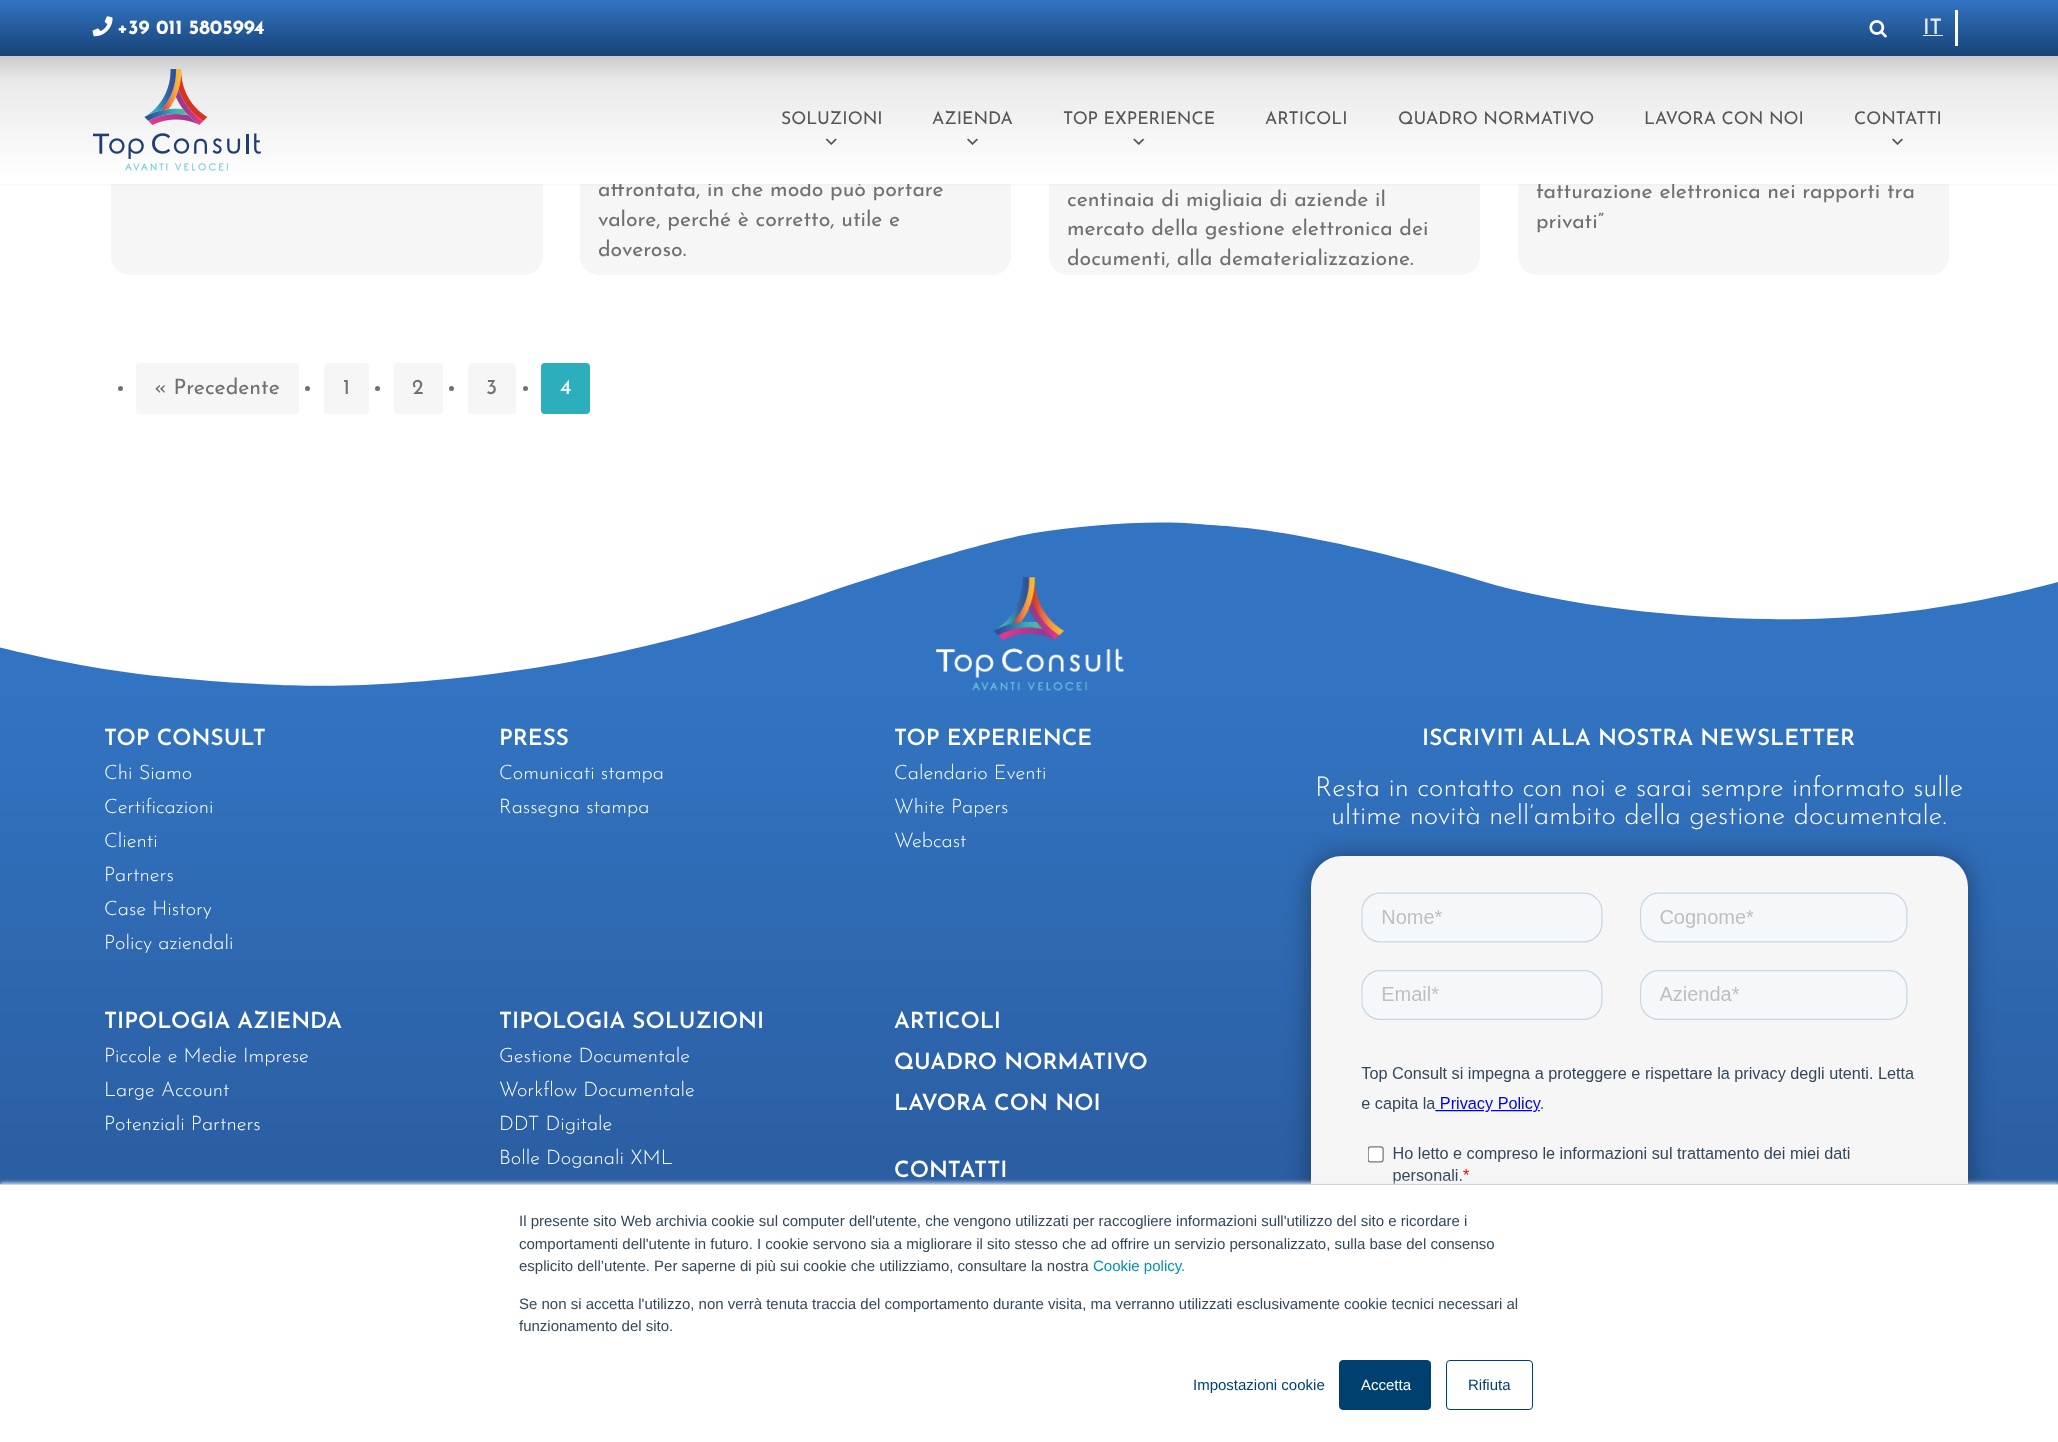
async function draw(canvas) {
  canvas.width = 2058;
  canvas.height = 1442;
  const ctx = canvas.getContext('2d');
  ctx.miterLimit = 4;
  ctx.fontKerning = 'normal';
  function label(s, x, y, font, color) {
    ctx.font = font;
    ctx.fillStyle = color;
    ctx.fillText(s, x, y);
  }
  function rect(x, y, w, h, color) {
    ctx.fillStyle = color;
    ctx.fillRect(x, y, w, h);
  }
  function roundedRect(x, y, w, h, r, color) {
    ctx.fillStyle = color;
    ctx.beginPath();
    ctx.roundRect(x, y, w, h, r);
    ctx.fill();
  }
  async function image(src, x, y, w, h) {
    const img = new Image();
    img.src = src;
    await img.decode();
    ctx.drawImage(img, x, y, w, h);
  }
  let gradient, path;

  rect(0, 0, 2058, 1442, '#fff');
  roundedRect(111, -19, 432, 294, 19, '#f6f6f6');
  roundedRect(580, -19, 431, 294, 19, '#f6f6f6');
  roundedRect(1049, -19, 431, 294, 19, '#f6f6f6');
  roundedRect(1518, -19, 431, 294, 19, '#f6f6f6');
  ctx.fillStyle = '#0000001a';
  ctx.filter = 'blur(2px)';
  ctx.beginPath();
  ctx.rect(0, -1, 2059, 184);
  ctx.fill();
  ctx.filter = 'none';
  gradient = ctx.createLinearGradient(1029, 0, 1029, 56);
  gradient.addColorStop(0, '#3274c2');
  gradient.addColorStop(0.95, '#18457a');
  ctx.fillStyle = gradient;
  ctx.fillRect(0, 0, 2058, 56);
  await image('assets/img1.png', 92, 16, 21, 21);
  label('+39 011 5805994', 117, 34, 'bold 20px Josefin Sans', '#fff');
  await image('assets/img2.png', 1869, 20, 18, 18);
  rect(1955, 10, 3, 36, '#fff');
  label('IT', 1923, 34, '500 21.25px Josefin Sans', '#e8e8e8');
  rect(1923, 35, 20, 1, '#e8e8e8');
  label('affrontata, in che modo può portare', 598, 196, '21.25px Josefin Sans', '#707070');
  label('fatturazione elettronica nei rapporti tra', 1536, 198, '21.25px Josefin Sans', '#707070');
  gradient = ctx.createLinearGradient(1029, 56, 1029, 184);
  gradient.addColorStop(0, '#cbcbcb');
  gradient.addColorStop(0.2, '#eaeaea');
  gradient.addColorStop(0.96, '#fff');
  ctx.fillStyle = gradient;
  ctx.fillRect(0, 56, 2058, 128);
  await image('assets/img3.png', 93, 69, 168, 102);
  label('SOLUZIONI', 781, 124, '17.5px Josefin Sans', '#555');
  await image('assets/img4.png', 825, 138, 12, 7);
  label('AZIENDA', 932, 124, '17.5px Josefin Sans', '#555');
  await image('assets/img5.png', 967, 138, 11, 7);
  label('TOP EXPERIENCE', 1063, 124, '17.5px Josefin Sans', '#555');
  await image('assets/img6.png', 1133, 138, 12, 7);
  label('ARTICOLI', 1265, 124, '17.5px Josefin Sans', '#555');
  label('QUADRO NORMATIVO', 1398, 124, '17.5px Josefin Sans', '#555');
  label('LAVORA CON NOI', 1644, 124, '17.5px Josefin Sans', '#555');
  label('CONTATTI', 1854, 124, '17.5px Josefin Sans', '#555');
  await image('assets/img5.png', 1892, 138, 11, 7);
  label('valore, perché è corretto, utile e', 598, 226, '21.25px Josefin Sans', '#707070');
  label('doveroso.', 598, 256, '21.25px Josefin Sans', '#707070');
  label('centinaia di migliaia di aziende il', 1067, 206, '21.25px Josefin Sans', '#707070');
  label('mercato della gestione elettronica dei', 1067, 235, '21.25px Josefin Sans', '#707070');
  label('documenti, alla dematerializzazione.', 1067, 265, '21.25px Josefin Sans', '#707070');
  label('privati”', 1536, 228, '21.25px Josefin Sans', '#707070');
  ctx.beginPath();
  ctx.arc(120.5, 388.5, 2.5, 0, 2 * Math.PI);
  ctx.fill();
  roundedRect(136, 363, 163, 51, 4, '#f6f6f6');
  label('« Precedente', 154, 394, '21.25px Josefin Sans', '#707070');
  ctx.beginPath();
  ctx.arc(307.5, 388.5, 2.5, 0, 2 * Math.PI);
  ctx.fill();
  roundedRect(324, 363, 45, 51, 4, '#f6f6f6');
  label('1', 343, 394, '21.25px Josefin Sans', '#707070');
  ctx.beginPath();
  ctx.arc(377.5, 388.5, 2.5, 0, 2 * Math.PI);
  ctx.fill();
  roundedRect(394, 363, 49, 51, 4, '#f6f6f6');
  label('2', 412, 394, '21.25px Josefin Sans', '#707070');
  ctx.beginPath();
  ctx.arc(451.5, 388.5, 2.5, 0, 2 * Math.PI);
  ctx.fill();
  roundedRect(468, 363, 48, 51, 4, '#f6f6f6');
  label('3', 486, 394, '21.25px Josefin Sans', '#707070');
  ctx.beginPath();
  ctx.arc(525.5, 388.5, 2.5, 0, 2 * Math.PI);
  ctx.fill();
  roundedRect(541, 363, 49, 51, 4, '#2caebd');
  label('4', 560, 394, '21.25px Josefin Sans', '#fff');
  rect(0, 522, 2058, 169, '#3274c2');
  ctx.save();
  ctx.beginPath();
  ctx.rect(0, 513, 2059, 175);
  ctx.clip();
  ctx.fillStyle = '#fff';
  path = new Path2D('M1198 524C1149 520 1086 525 1034 533C983 542 881 574 817 596C653 652 528 674 400 683C349 686 295 689 177 678C58 668-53 633-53 633V512H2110V566C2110 566 1955 623 1768 619C1683 618 1567 607 1478 580C1432 566 1365 548 1305 537C1247 526 1220 526 1198 524Z');
  ctx.fill(path);
  ctx.restore();
  await image('assets/img7.png', 936, 577, 188, 114);
  gradient = ctx.createLinearGradient(1029, 691, 1029, 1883);
  gradient.addColorStop(0, '#3274c2');
  gradient.addColorStop(1, '#203e74');
  ctx.fillStyle = gradient;
  ctx.fillRect(0, 691, 2058, 493);
  label('TOP CONSULT', 104, 745, '600 22.5px Josefin Sans', '#fff');
  label('Chi Siamo', 104, 779, '300 20px Josefin Sans', '#fff');
  label('Certificazioni', 104, 813, '300 20px Josefin Sans', '#fff');
  label('Clienti', 104, 847, '300 20px Josefin Sans', '#fff');
  label('Partners', 104, 881, '300 20px Josefin Sans', '#fff');
  label('Case History', 104, 915, '300 20px Josefin Sans', '#fff');
  label('Policy aziendali', 104, 949, '300 20px Josefin Sans', '#fff');
  label('PRESS', 499, 745, '600 22.5px Josefin Sans', '#fff');
  label('Comunicati stampa', 499, 779, '300 20px Josefin Sans', '#fff');
  label('Rassegna stampa', 499, 813, '300 20px Josefin Sans', '#fff');
  label('TOP EXPERIENCE', 894, 745, '600 22.5px Josefin Sans', '#fff');
  label('Calendario Eventi', 894, 779, '300 20px Josefin Sans', '#fff');
  label('White Papers', 894, 813, '300 20px Josefin Sans', '#fff');
  label('Webcast', 894, 847, '300 20px Josefin Sans', '#fff');
  label('TIPOLOGIA AZIENDA', 104, 1028, '600 22.5px Josefin Sans', '#fff');
  label('Piccole e Medie Imprese', 104, 1062, '300 20px Josefin Sans', '#fff');
  label('Large Account', 104, 1096, '300 20px Josefin Sans', '#fff');
  label('Potenziali Partners', 104, 1130, '300 20px Josefin Sans', '#fff');
  label('TIPOLOGIA SOLUZIONI', 499, 1028, '600 22.5px Josefin Sans', '#fff');
  label('Gestione Documentale', 499, 1062, '300 20px Josefin Sans', '#fff');
  label('Workflow Documentale', 499, 1096, '300 20px Josefin Sans', '#fff');
  label('DDT Digitale', 499, 1130, '300 20px Josefin Sans', '#fff');
  label('Bolle Doganali XML', 499, 1164, '300 20px Josefin Sans', '#fff');
  label('ARTICOLI', 894, 1028, '600 22.5px Josefin Sans', '#fff');
  label('QUADRO NORMATIVO', 894, 1069, '600 22.5px Josefin Sans', '#fff');
  label('LAVORA CON NOI', 894, 1110, '600 22.5px Josefin Sans', '#fff');
  label('CONTATTI', 894, 1177, '600 22.5px Josefin Sans', '#fff');
  label('ISCRIVITI ALLA NOSTRA NEWSLETTER', 1422, 745, '600 22.5px Josefin Sans', '#fff');
  label('Resta in contatto con noi e sarai sempre informato sulle', 1315, 796, '300 27.5px Josefin Sans', '#fff');
  label('ultime novità nell’ambito della gestione documentale.', 1331, 824, '300 27.5px Josefin Sans', '#fff');
  ctx.fillStyle = '#0000005e';
  ctx.filter = 'blur(12.5px)';
  ctx.beginPath();
  ctx.roundRect(1311, 856, 657, 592, 31);
  ctx.fill();
  ctx.filter = 'none';
  roundedRect(1311, 856, 657, 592, 31, '#f6f6f6');
  await image('assets/img8.png', 1361, 892, 554, 292);
  ctx.fillStyle = '#eaf0f6';
  ctx.filter = 'blur(2px)';
  ctx.beginPath();
  ctx.rect(0, 1183, 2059, 258);
  ctx.fill();
  ctx.filter = 'none';
  rect(0, 1185, 2058, 257, '#fff');
  rect(0, 1184, 2058, 1, '#cbd6e2');
  label('Il presente sito Web archivia cookie sul computer dell\'utente, che vengono utilizzati per raccogliere informazioni sull\'utilizzo del sito e ricordare i', 519, 1226, '15px Liberation Sans', '#33475b');
  label('comportamenti dell\'utente in futuro. I cookie servono sia a migliorare il sito stesso che ad offrire un servizio personalizzato, sulla base del consenso', 519, 1249, '15px Liberation Sans', '#33475b');
  label('esplicito dell’utente. Per saperne di più sui cookie che utilizziamo, consultare la nostra', 519, 1271, '15px Liberation Sans', '#33475b');
  label('Cookie policy.', 1093, 1271, '15px Liberation Sans', '#0091ae');
  label('Se non si accetta l\'utilizzo, non verrà tenuta traccia del comportamento durante visita, ma verranno utilizzati esclusivamente cookie tecnici necessari al', 519, 1309, '15px Liberation Sans', '#33475b');
  label('funzionamento del sito.', 519, 1331, '15px Liberation Sans', '#33475b');
  label('Impostazioni cookie', 1193, 1390, '15px Liberation Sans', '#004070');
  ctx.beginPath();
  ctx.roundRect(1339.5, 1360.5, 91, 49, 3.5);
  ctx.fill();
  ctx.strokeStyle = '#004070';
  ctx.stroke();
  label('Accetta', 1361, 1390, '15px Liberation Sans', '#fff');
  ctx.beginPath();
  ctx.roundRect(1446.5, 1360.5, 86, 49, 3.5);
  ctx.stroke();
  label('Rifiuta', 1468, 1390, '15px Liberation Sans', '#004070');
}

draw(document.querySelector('canvas'));
